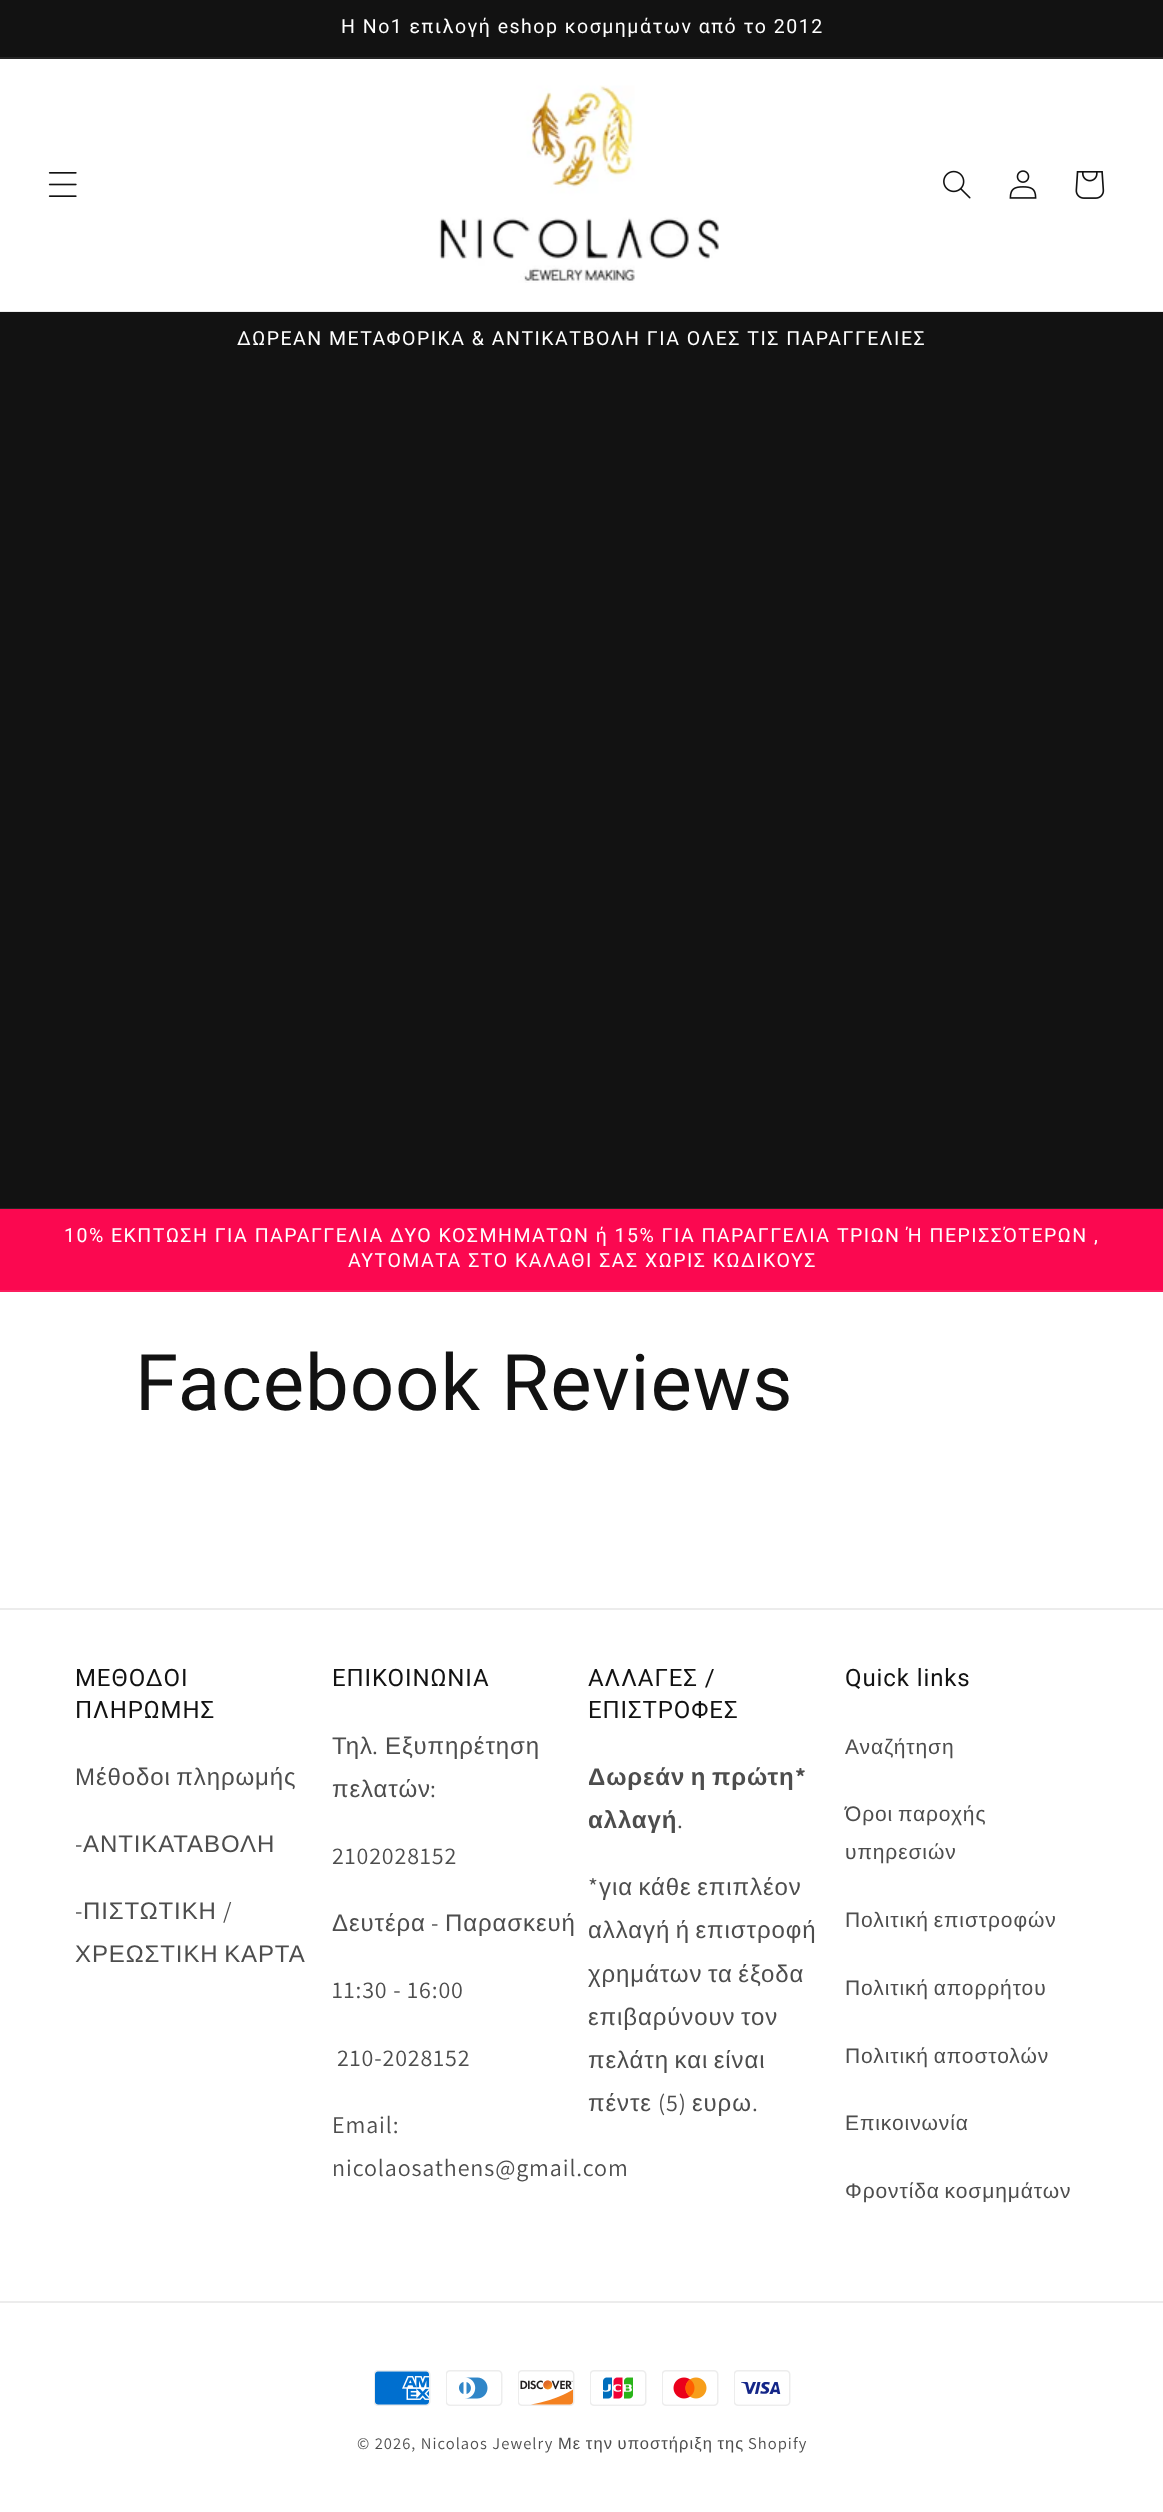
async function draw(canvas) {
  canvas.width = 1163;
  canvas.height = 2512;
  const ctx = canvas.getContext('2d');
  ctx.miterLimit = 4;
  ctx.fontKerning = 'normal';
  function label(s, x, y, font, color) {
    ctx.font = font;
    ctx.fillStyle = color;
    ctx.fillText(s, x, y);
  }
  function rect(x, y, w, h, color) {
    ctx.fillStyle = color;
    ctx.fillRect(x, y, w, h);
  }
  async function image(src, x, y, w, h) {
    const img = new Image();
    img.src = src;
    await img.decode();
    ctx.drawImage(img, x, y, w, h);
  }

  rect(0, 0, 1163, 2512, '#fff');
  rect(0, 311, 1163, 1, '#ececec');
  rect(0, 0, 1163, 57, '#121212');
  rect(0, 57, 1163, 2, '#252525');
  ctx.letterSpacing = '1.5px';
  label('Η Νο1 επιλογή eshop κοσμημάτων από το 2012', 341, 33, '19.5px Roboto', '#fff');
  await image('assets/img1.png', 48, 172, 29, 25);
  await image('assets/img2.png', 439, 85, 280, 198);
  await image('assets/img3.png', 943, 170, 28, 29);
  await image('assets/img4.png', 1009, 170, 28, 29);
  await image('assets/img5.png', 1075, 171, 30, 28);
  rect(0, 312, 1163, 896, '#121212');
  rect(0, 1208, 1163, 1, '#252525');
  label('ΔΩΡΕΑΝ ΜΕΤΑΦΟΡΙΚΑ & ΑΝΤΙΚΑΤΒΟΛΗ ΓΙΑ ΟΛΕΣ ΤΙΣ ΠΑΡΑΓΓΕΛΙΕΣ', 237, 345, '19.5px Roboto', '#fff');
  rect(0, 1209, 1163, 81, '#fb0850');
  rect(0, 1290, 1163, 2, '#fb1c5e');
  label('10% ΕΚΠΤΩΣΗ ΓΙΑ ΠΑΡΑΓΓΕΛΙΑ ΔΥΟ ΚΟΣΜΗΜΑΤΩΝ ή 15% ΓΙΑ ΠΑΡΑΓΓΕΛΙΑ ΤΡΙΩΝ Ή ΠΕΡΙΣΣΌΤΕΡΩΝ ,', 64, 1242, '19.5px Roboto', '#fff');
  label('ΑΥΤΟΜΑΤΑ ΣΤΟ ΚΑΛΑΘΙ ΣΑΣ ΧΩΡΙΣ ΚΩΔΙΚΟΥΣ', 348, 1267, '19.5px Roboto', '#fff');
  ctx.letterSpacing = '0.9px';
  label('Facebook Reviews', 135, 1410, '78px Roboto', '#121212');
  rect(0, 1608, 1163, 2, '#ececec');
  label('ΜΕΘΟΔΟΙ', 75, 1686, '24px Roboto', '#121212');
  label('ΠΛΗΡΩΜΗΣ', 75, 1718, '24px Roboto', '#121212');
  ctx.wordSpacing = '-2px';
  label('Μέθοδοι πληρωμής', 75, 1785, '24px Liberation Sans', '#4d4d4d');
  ctx.wordSpacing = '0px';
  label('-', 75, 1852, '24px Assistant', '#4d4d4d');
  label('ΑΝΤΙΚΑΤΑΒΟΛΗ', 83, 1852, '24px Liberation Sans', '#4d4d4d');
  label('-', 75, 1919, '24px Assistant', '#4d4d4d');
  label('ΠΙΣΤΩΤΙΚΗ', 83, 1919, '24px Liberation Sans', '#4d4d4d');
  label('/', 223, 1919, '24px Assistant', '#4d4d4d');
  ctx.wordSpacing = '-2px';
  label('ΧΡΕΩΣΤΙΚΗ ΚΑΡΤΑ', 75, 1962, '24px Liberation Sans', '#4d4d4d');
  ctx.wordSpacing = '0px';
  label('ΕΠΙΚΟΙΝΩΝΙΑ', 332, 1686, '24px Roboto', '#121212');
  label('Τηλ', 332, 1754, '24px Liberation Sans', '#4d4d4d');
  label('.', 372, 1754, '24px Assistant', '#4d4d4d');
  label('Εξυπηρέτηση', 385, 1754, '24px Liberation Sans', '#4d4d4d');
  label('πελατών', 332, 1797, '24px Liberation Sans', '#4d4d4d');
  label(':', 430, 1797, '24px Assistant', '#4d4d4d');
  label('2102028152', 332, 1864, '24px Assistant', '#4d4d4d');
  label('Δευτέρα', 332, 1931, '24px Liberation Sans', '#4d4d4d');
  label('-', 431, 1931, '24px Assistant', '#4d4d4d');
  label('Παρασκευή', 445, 1931, '24px Liberation Sans', '#4d4d4d');
  label('11:30 - 16:00', 332, 1998, '24px Assistant', '#4d4d4d');
  label('210-2028152', 337, 2066, '24px Assistant', '#4d4d4d');
  label('Email:', 332, 2133, '24px Assistant', '#4d4d4d');
  label('nicolaosathens@gmail.com', 332, 2176, '24px Assistant', '#4d4d4d');
  label('ΑΛΛΑΓΕΣ /', 588, 1686, '24px Roboto', '#121212');
  label('ΕΠΙΣΤΡΟΦΕΣ', 588, 1718, '24px Roboto', '#121212');
  ctx.wordSpacing = '-2px';
  label('Δωρεάν η πρώτη', 588, 1785, 'bold 24px Liberation Sans', '#4d4d4d');
  ctx.wordSpacing = '0px';
  label('*', 795, 1785, 'bold 24px Assistant', '#4d4d4d');
  label('αλλαγή', 588, 1828, 'bold 24px Liberation Sans', '#4d4d4d');
  label('.', 677, 1828, '24px Assistant', '#4d4d4d');
  label('*', 588, 1895, '24px Assistant', '#4d4d4d');
  ctx.wordSpacing = '-2px';
  label('για κάθε επιπλέον', 599, 1895, '24px Liberation Sans', '#4d4d4d');
  label('αλλαγή ή επιστροφή', 588, 1938, '24px Liberation Sans', '#4d4d4d');
  label('χρημάτων τα έξοδα', 588, 1982, '24px Liberation Sans', '#4d4d4d');
  label('επιβαρύνουν τον', 588, 2025, '24px Liberation Sans', '#4d4d4d');
  label('πελάτη και είναι', 588, 2068, '24px Liberation Sans', '#4d4d4d');
  ctx.wordSpacing = '0px';
  label('πέντε', 588, 2111, '24px Liberation Sans', '#4d4d4d');
  label('(5)', 658, 2111, '24px Assistant', '#4d4d4d');
  label('ευρω', 692, 2111, '24px Liberation Sans', '#4d4d4d');
  label('.', 752, 2111, '24px Assistant', '#4d4d4d');
  label('Quick links', 845, 1686, '24px Roboto', '#121212');
  label('Αναζήτηση', 845, 1754, '21px Liberation Sans', '#4d4d4d');
  ctx.wordSpacing = '-2px';
  label('Όροι παροχής', 845, 1821, '21px Liberation Sans', '#4d4d4d');
  ctx.wordSpacing = '0px';
  label('υπηρεσιών', 845, 1859, '21px Liberation Sans', '#4d4d4d');
  ctx.wordSpacing = '-2px';
  label('Πολιτική επιστροφών', 845, 1927, '21px Liberation Sans', '#4d4d4d');
  label('Πολιτική απορρήτου', 845, 1995, '21px Liberation Sans', '#4d4d4d');
  label('Πολιτική αποστολών', 845, 2063, '21px Liberation Sans', '#4d4d4d');
  ctx.wordSpacing = '0px';
  label('Επικοινωνία', 845, 2130, '21px Liberation Sans', '#4d4d4d');
  ctx.wordSpacing = '-2px';
  label('Φροντίδα κοσμημάτων', 845, 2198, '21px Liberation Sans', '#4d4d4d');
  rect(0, 2301, 1163, 2, '#ececec');
  await image('assets/img6.png', 374, 2370, 57, 36);
  await image('assets/img7.png', 446, 2370, 57, 36);
  await image('assets/img8.png', 518, 2370, 57, 36);
  await image('assets/img9.png', 590, 2370, 57, 36);
  await image('assets/img10.png', 662, 2370, 57, 36);
  await image('assets/img11.png', 734, 2370, 57, 36);
  ctx.letterSpacing = '1.05px';
  ctx.wordSpacing = '0px';
  label('© 2026, Nicolaos Jewelry', 357, 2449, '16.5px Assistant', '#4d4d4d');
  ctx.wordSpacing = '-1px';
  label('Με την υποστήριξη της', 558, 2449, '16.5px Liberation Sans', '#4d4d4d');
  ctx.wordSpacing = '0px';
  label('Shopify', 748, 2449, '16.5px Assistant', '#4d4d4d');
}

draw(document.querySelector('canvas'));
